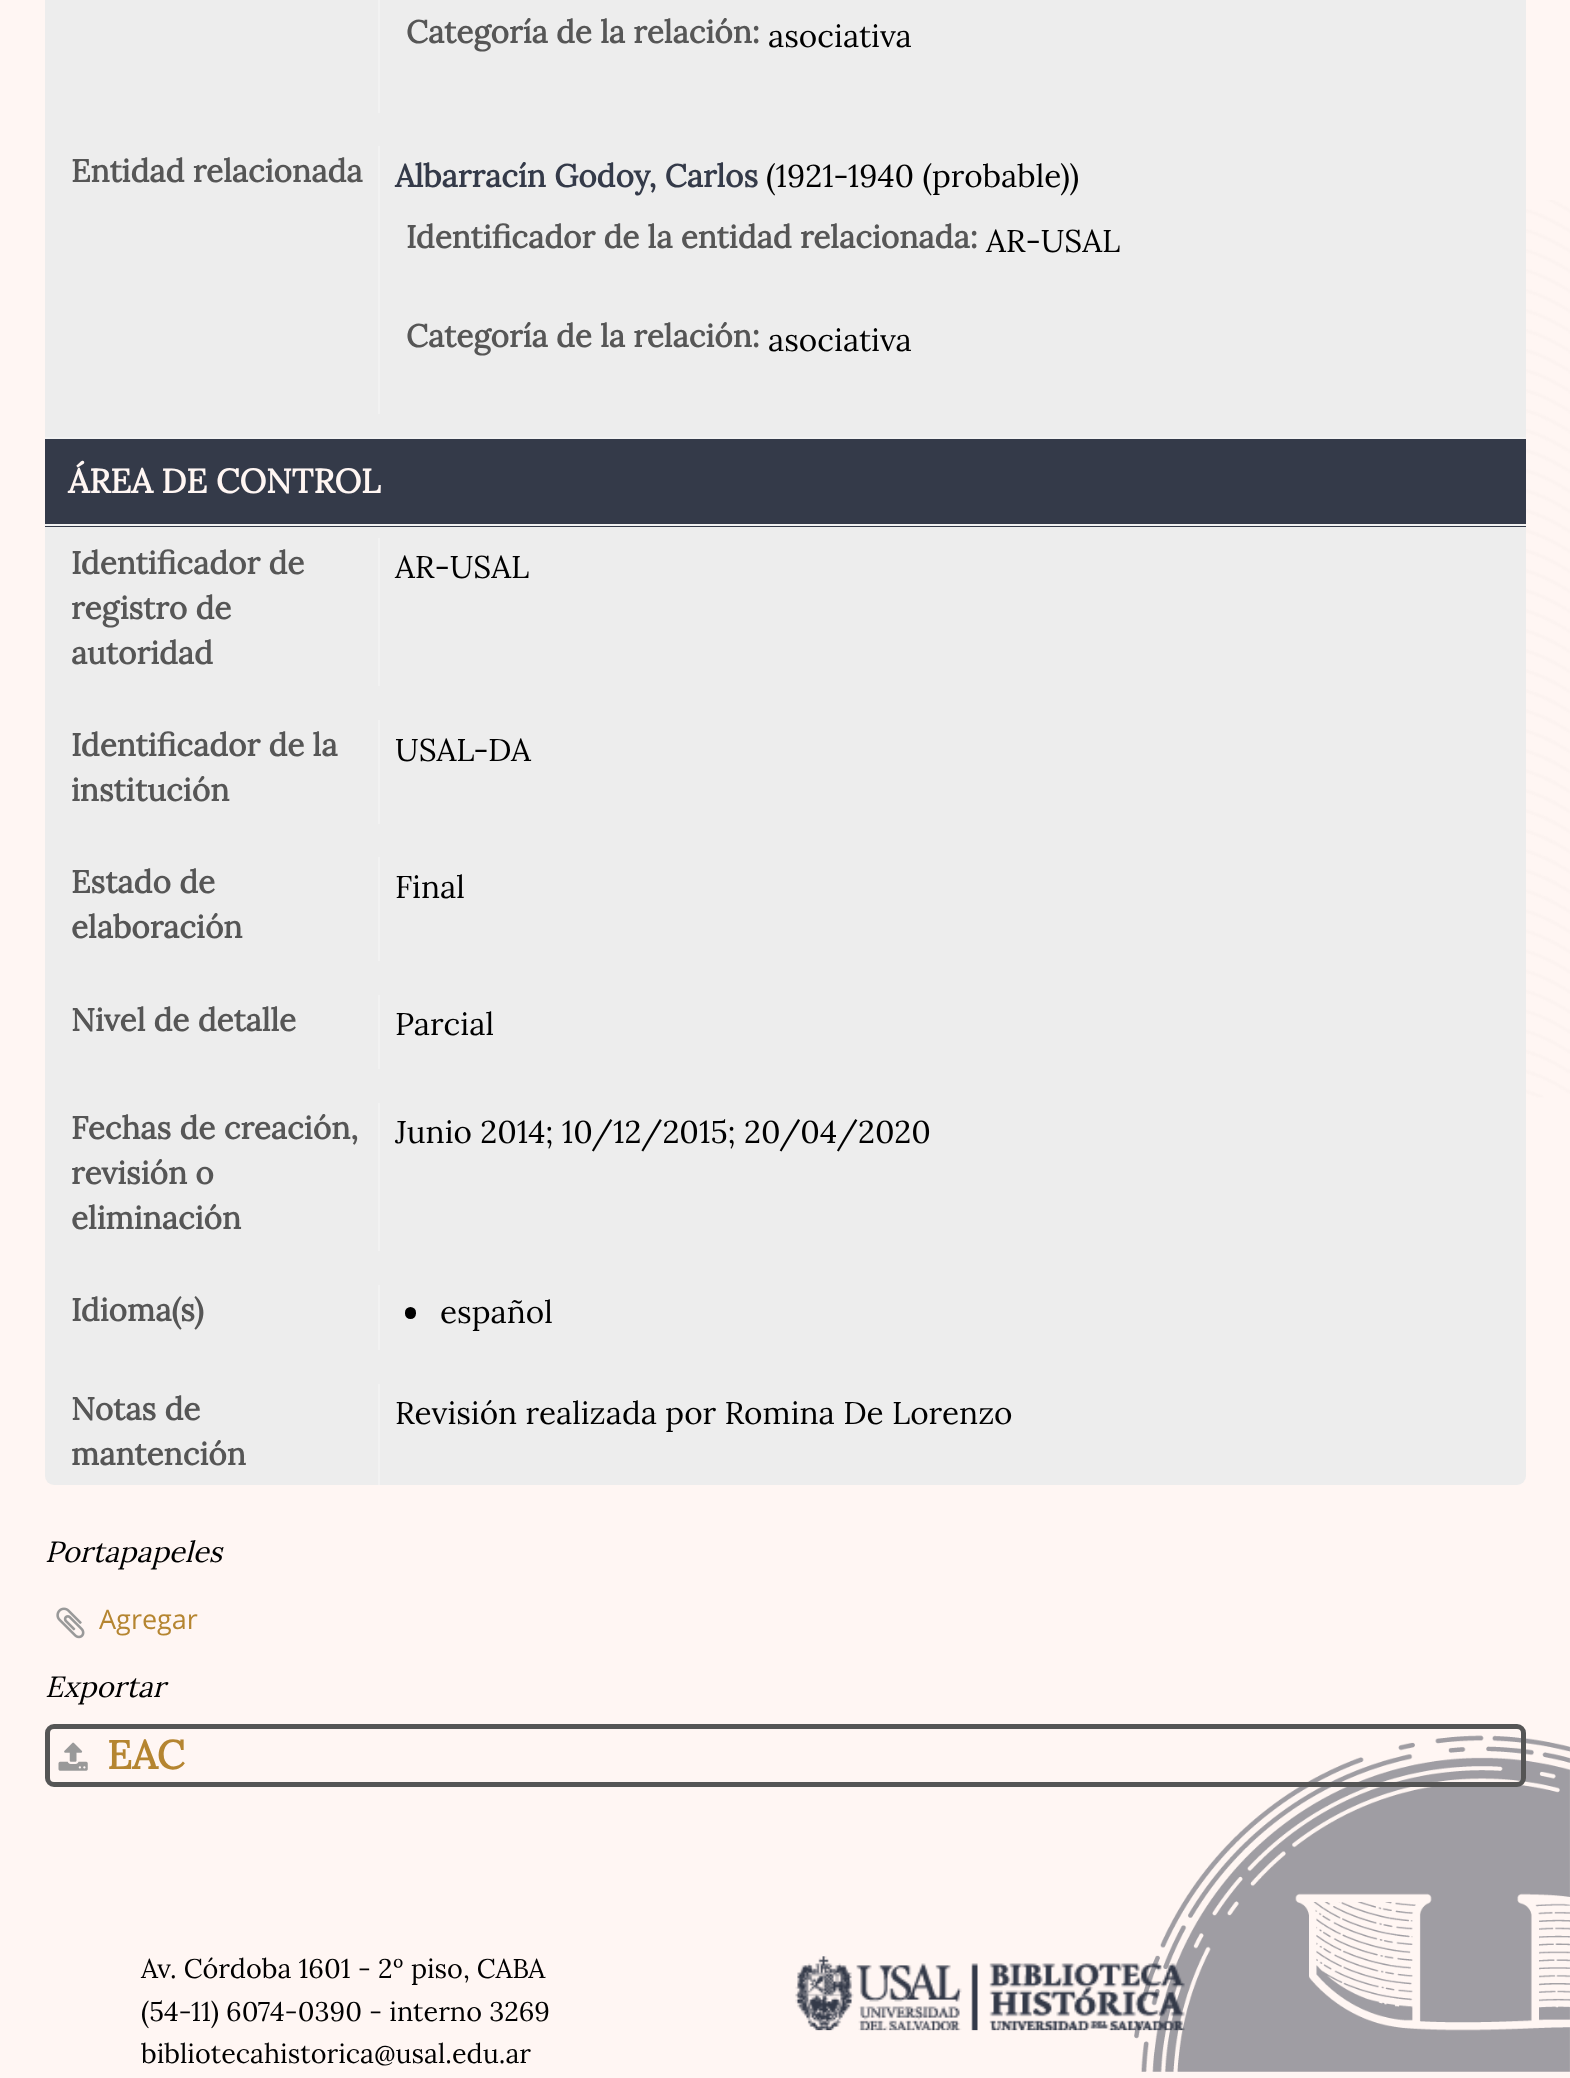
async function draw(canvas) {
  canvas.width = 1570;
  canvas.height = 2078;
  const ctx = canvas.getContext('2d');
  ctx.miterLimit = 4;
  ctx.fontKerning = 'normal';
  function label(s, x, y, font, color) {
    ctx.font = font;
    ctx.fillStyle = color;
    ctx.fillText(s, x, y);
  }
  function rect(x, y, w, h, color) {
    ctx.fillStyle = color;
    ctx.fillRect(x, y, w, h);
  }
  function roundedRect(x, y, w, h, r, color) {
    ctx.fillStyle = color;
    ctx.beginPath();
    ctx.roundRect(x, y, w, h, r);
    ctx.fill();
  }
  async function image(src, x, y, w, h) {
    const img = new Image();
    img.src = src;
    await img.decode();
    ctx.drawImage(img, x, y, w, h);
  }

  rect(0, 0, 1570, 2078, '#fff6f3');
  await image('assets/img1.png', 1134, 200, 436, 1872);
  roundedRect(45, -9, 1481, 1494, 9, '#ededed');
  rect(378, 0, 2, 113, '#f2f2f2');
  label('Categoría de la relación:', 406, 43, 'bold 31.5px Lora', '#565656');
  label('asociativa', 768, 47, '31.5px Lora', '#000');
  rect(378, 146, 2, 268, '#f2f2f2');
  label('Entidad relacionada', 71, 182, 'bold 31.5px Lora', '#565656');
  label('Albarracín Godoy, Carlos', 395, 187, 'bold 31.5px Lora', '#343a49');
  label('(1921-1940 (probable))', 766, 187, '31.5px Lora', '#000');
  label('Identificador de la entidad relacionada:', 406, 248, 'bold 31.5px Lora', '#565656');
  label('AR-USAL', 986, 252, '31.5px Lora', '#000');
  label('Categoría de la relación:', 406, 347, 'bold 31.5px Lora', '#565656');
  label('asociativa', 768, 351, '31.5px Lora', '#000');
  rect(45, 439, 1481, 88, '#343a49');
  rect(45, 437, 1481, 2, '#f2f2f2');
  rect(45, 524, 1481, 2, '#f2f2f2');
  label('ÁREA DE CONTROL', 68, 493, 'bold 33.75px Lora', '#fff6f3');
  rect(378, 538, 2, 148, '#f2f2f2');
  label('Identificador de', 71, 574, 'bold 31.5px Lora', '#565656');
  label('registro de', 71, 619, 'bold 31.5px Lora', '#565656');
  label('autoridad', 71, 664, 'bold 31.5px Lora', '#565656');
  label('AR-USAL', 395, 578, '31.5px Lora', '#000');
  rect(378, 720, 2, 104, '#f2f2f2');
  label('Identificador de la', 71, 756, 'bold 31.5px Lora', '#565656');
  label('institución', 71, 801, 'bold 31.5px Lora', '#565656');
  label('USAL-DA', 395, 761, '31.5px Lora', '#000');
  rect(378, 857, 2, 104, '#f2f2f2');
  label('Estado de', 71, 893, 'bold 31.5px Lora', '#565656');
  label('elaboración', 71, 938, 'bold 31.5px Lora', '#565656');
  label('Final', 395, 898, '31.5px Lora', '#000');
  rect(378, 995, 2, 74, '#f2f2f2');
  label('Nivel de detalle', 71, 1031, 'bold 31.5px Lora', '#565656');
  label('Parcial', 395, 1035, '31.5px Lora', '#000');
  rect(378, 1103, 2, 148, '#f2f2f2');
  label('Fechas de creación,', 71, 1139, 'bold 31.5px Lora', '#565656');
  label('revisión o', 71, 1184, 'bold 31.5px Lora', '#565656');
  label('eliminación', 71, 1229, 'bold 31.5px Lora', '#565656');
  label('Junio 2014; 10/12/2015; 20/04/2020', 395, 1143, '31.5px Lora', '#000');
  rect(378, 1285, 2, 65, '#f2f2f2');
  label('Idioma(s)', 71, 1321, 'bold 31.5px Lora', '#565656');
  roundedRect(405, 1307, 11, 12, 5.5, '#000');
  label('español', 440, 1323, '31.5px Lora', '#000');
  rect(378, 1384, 2, 101, '#f2f2f2');
  label('Notas de', 71, 1420, 'bold 31.5px Lora', '#565656');
  label('mantención', 71, 1465, 'bold 31.5px Lora', '#565656');
  label('Revisión realizada por Romina De Lorenzo', 395, 1424, '31.5px Lora', '#000');
  label('Portapapeles', 45, 1562, 'italic 29.25px Lora', '#000');
  await image('assets/img2.png', 56, 1607, 29, 32);
  label('Agregar', 99, 1629, '27px Open Sans', '#b58530');
  label('Exportar', 45, 1697, 'italic 29.25px Lora', '#000');
  ctx.beginPath();
  ctx.roundRect(47.5, 1726.5, 1476, 58, 6.5);
  ctx.strokeStyle = '#555';
  ctx.lineWidth = 5;
  ctx.stroke();
  await image('assets/img3.png', 58, 1742, 30, 29);
  label('EAC', 107, 1769, 'bold 40px Lora', '#b58530');
  label('Av. Córdoba 1601 - 2º piso, CABA', 141, 1978, '27px Lora', '#000');
  label('(54-11) 6074-0390 - interno 3269', 141, 2021, '27px Lora', '#000');
  label('bibliotecahistorica@usal.edu.ar', 141, 2063, '27px Lora', '#000');
  await image('assets/img4.png', 795, 1956, 390, 75);
}

draw(document.querySelector('canvas'));
